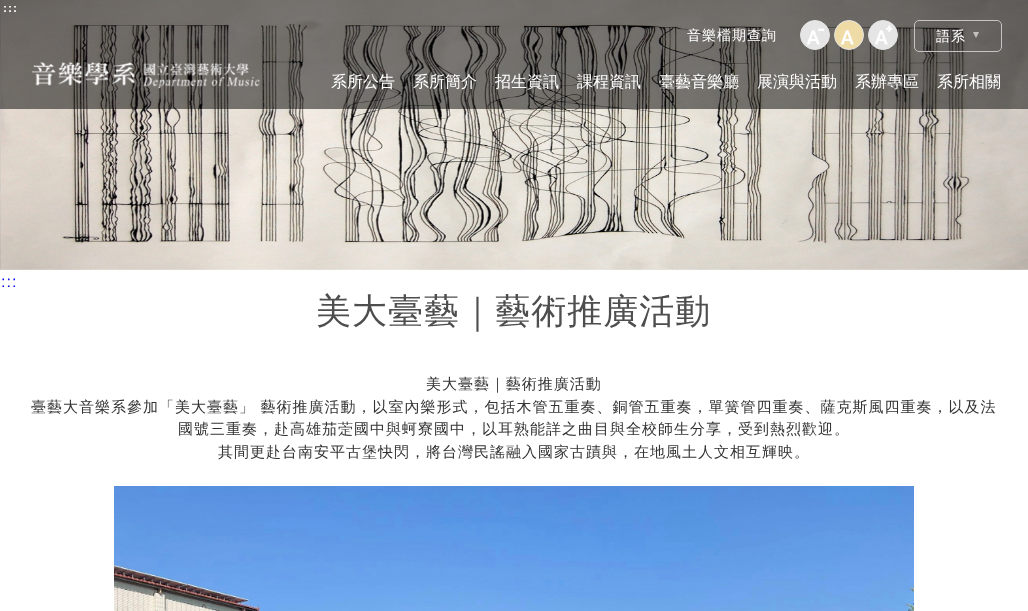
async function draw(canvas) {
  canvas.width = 1028;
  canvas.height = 611;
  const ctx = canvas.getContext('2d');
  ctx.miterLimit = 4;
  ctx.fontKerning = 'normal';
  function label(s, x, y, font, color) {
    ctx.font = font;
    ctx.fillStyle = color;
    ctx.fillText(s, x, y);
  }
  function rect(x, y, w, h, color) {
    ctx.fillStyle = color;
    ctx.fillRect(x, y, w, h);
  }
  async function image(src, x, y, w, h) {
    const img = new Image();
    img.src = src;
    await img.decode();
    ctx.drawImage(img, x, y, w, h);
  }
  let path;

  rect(0, 0, 1028, 611, '#fff');
  await image('assets/img5.png', 0, 0, 1, 270);
  await image('assets/img6.png', 1, 0, 1027, 270);
  rect(0, 0, 1028, 109, '#00000080');
  ctx.letterSpacing = '1px';
  label(':::', 3, 12, 'bold 12px Liberation Sans', '#fff');
  label('音樂檔期查詢', 687, 40, '500 14px WenQuanYi Zen Hei', '#fff');
  ctx.fillStyle = '#e5e5e5';
  ctx.beginPath();
  ctx.arc(815, 35, 14.5, 0, 2 * Math.PI);
  ctx.fill();
  ctx.strokeStyle = '#e5e5e5';
  ctx.stroke();
  await image('assets/img1.png', 807, 28, 18, 17);
  ctx.fillStyle = '#eedba6';
  ctx.beginPath();
  ctx.arc(849, 35, 14.5, 0, 2 * Math.PI);
  ctx.fill();
  ctx.stroke();
  await image('assets/img2.png', 840, 30, 14, 15);
  ctx.fillStyle = '#e5e5e5';
  ctx.beginPath();
  ctx.arc(883, 35, 14.5, 0, 2 * Math.PI);
  ctx.fill();
  ctx.stroke();
  await image('assets/img3.png', 875, 25, 18, 20);
  ctx.beginPath();
  ctx.roundRect(914.5, 20.5, 87, 31, 4.5);
  ctx.strokeStyle = '#c5c3c3';
  ctx.stroke();
  label('語系', 936, 41, '500 14px WenQuanYi Zen Hei', '#fff');
  ctx.fillStyle = '#c3c1c1';
  path = new Path2D('M973 32H979L976 38Z');
  ctx.fill(path);
  await image('assets/img4.png', 31, 62, 229, 27);
  ctx.letterSpacing = '0px';
  label('系所公告', 331, 87, '500 16px WenQuanYi Zen Hei', '#fff');
  label('系所簡介', 413, 87, '500 16px WenQuanYi Zen Hei', '#fff');
  label('招生資訊', 495, 87, '500 16px WenQuanYi Zen Hei', '#fff');
  label('課程資訊', 577, 87, '500 16px WenQuanYi Zen Hei', '#fff');
  label('臺藝音樂廳', 659, 87, '500 16px WenQuanYi Zen Hei', '#fff');
  label('展演與活動', 757, 87, '500 16px WenQuanYi Zen Hei', '#fff');
  label('系辦專區', 855, 87, '500 16px WenQuanYi Zen Hei', '#fff');
  label('系所相關', 937, 87, '500 16px WenQuanYi Zen Hei', '#fff');
  ctx.letterSpacing = '1px';
  label(':::', 1, 287, '16px Liberation Sans', '#00e');
  label('美大臺藝｜藝術推廣活動', 316, 323, '500 35px WenQuanYi Zen Hei', '#4e4e4e');
  label('美大臺藝｜藝術推廣活動', 426, 389, '500 15px WenQuanYi Zen Hei', '#333');
  label('臺藝大音樂系參加「美大臺藝」 藝術推廣活動，以室內樂形式，包括木管五重奏、銅管五重奏，單簧管四重奏、薩克斯風四重奏，以及法', 31, 412, '500 15px WenQuanYi Zen Hei', '#333');
  label('國號三重奏，赴高雄茄萣國中與蚵寮國中，以耳熟能詳之曲目與全校師生分享，受到熱烈歡迎。', 178, 434, '500 15px WenQuanYi Zen Hei', '#333');
  label('其間更赴台南安平古堡快閃，將台灣民謠融入國家古蹟與，在地風土人文相互輝映。', 218, 457, '500 15px WenQuanYi Zen Hei', '#333');
  await image('assets/img7.png', 114, 486, 800, 125);
}

draw(document.querySelector('canvas'));
